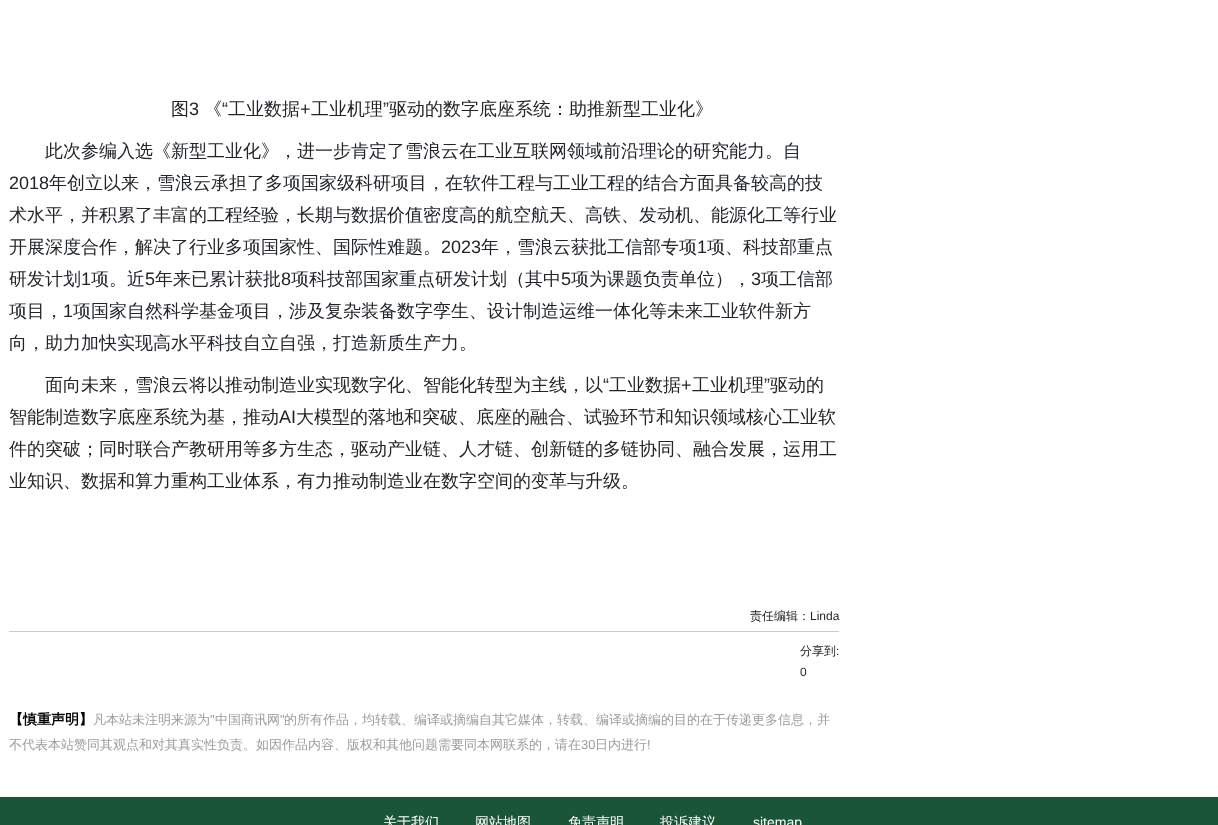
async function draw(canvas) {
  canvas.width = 1218;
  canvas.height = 825;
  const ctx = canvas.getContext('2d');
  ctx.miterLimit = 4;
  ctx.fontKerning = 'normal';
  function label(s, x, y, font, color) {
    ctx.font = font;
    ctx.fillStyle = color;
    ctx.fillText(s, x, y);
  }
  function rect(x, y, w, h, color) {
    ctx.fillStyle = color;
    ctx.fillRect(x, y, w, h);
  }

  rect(0, 0, 1218, 825, '#fff');
  label('图', 171, 115, '500 18px WenQuanYi Zen Hei', '#212529');
  label('3', 189, 115, '18px Liberation Sans', '#212529');
  label('《', 204, 115, '500 18px WenQuanYi Zen Hei', '#212529');
  label('“', 222, 115, '18px Liberation Sans', '#212529');
  label('工业数据', 228, 115, '500 18px WenQuanYi Zen Hei', '#212529');
  label('+', 300, 115, '18px Liberation Sans', '#212529');
  label('工业机理', 311, 115, '500 18px WenQuanYi Zen Hei', '#212529');
  label('”', 383, 115, '18px Liberation Sans', '#212529');
  label('驱动的数字底座系统：助推新型工业化》', 389, 115, '500 18px WenQuanYi Zen Hei', '#212529');
  label('此次参编入选《新型工业化》，进一步肯定了雪浪云在工业互联网领域前沿理论的研究能力。自', 45, 157, '500 18px WenQuanYi Zen Hei', '#212529');
  label('2018', 9, 189, '18px Liberation Sans', '#212529');
  label('年创立以来，雪浪云承担了多项国家级科研项目，在软件工程与工业工程的结合方面具备较高的技', 49, 189, '500 18px WenQuanYi Zen Hei', '#212529');
  label('术水平，并积累了丰富的工程经验，长期与数据价值密度高的航空航天、高铁、发动机、能源化工等行业', 9, 221, '500 18px WenQuanYi Zen Hei', '#212529');
  label('开展深度合作，解决了行业多项国家性、国际性难题。', 9, 253, '500 18px WenQuanYi Zen Hei', '#212529');
  label('2023', 441, 253, '18px Liberation Sans', '#212529');
  label('年，雪浪云获批工信部专项', 481, 253, '500 18px WenQuanYi Zen Hei', '#212529');
  label('1', 697, 253, '18px Liberation Sans', '#212529');
  label('项、科技部重点', 707, 253, '500 18px WenQuanYi Zen Hei', '#212529');
  label('研发计划', 9, 285, '500 18px WenQuanYi Zen Hei', '#212529');
  label('1', 81, 285, '18px Liberation Sans', '#212529');
  label('项。近', 91, 285, '500 18px WenQuanYi Zen Hei', '#212529');
  label('5', 145, 285, '18px Liberation Sans', '#212529');
  label('年来已累计获批', 155, 285, '500 18px WenQuanYi Zen Hei', '#212529');
  label('8', 281, 285, '18px Liberation Sans', '#212529');
  label('项科技部国家重点研发计划（其中', 291, 285, '500 18px WenQuanYi Zen Hei', '#212529');
  label('5', 561, 285, '18px Liberation Sans', '#212529');
  label('项为课题负责单位），', 571, 285, '500 18px WenQuanYi Zen Hei', '#212529');
  label('3', 751, 285, '18px Liberation Sans', '#212529');
  label('项工信部', 761, 285, '500 18px WenQuanYi Zen Hei', '#212529');
  label('项目，', 9, 317, '500 18px WenQuanYi Zen Hei', '#212529');
  label('1', 63, 317, '18px Liberation Sans', '#212529');
  label('项国家自然科学基金项目，涉及复杂装备数字孪生、设计制造运维一体化等未来工业软件新方', 73, 317, '500 18px WenQuanYi Zen Hei', '#212529');
  label('向，助力加快实现高水平科技自立自强，打造新质生产力。', 9, 349, '500 18px WenQuanYi Zen Hei', '#212529');
  label('面向未来，雪浪云将以推动制造业实现数字化、智能化转型为主线，以', 45, 391, '500 18px WenQuanYi Zen Hei', '#212529');
  label('“', 603, 391, '18px Liberation Sans', '#212529');
  label('工业数据', 609, 391, '500 18px WenQuanYi Zen Hei', '#212529');
  label('+', 681, 391, '18px Liberation Sans', '#212529');
  label('工业机理', 692, 391, '500 18px WenQuanYi Zen Hei', '#212529');
  label('”', 764, 391, '18px Liberation Sans', '#212529');
  label('驱动的', 770, 391, '500 18px WenQuanYi Zen Hei', '#212529');
  label('智能制造数字底座系统为基，推动', 9, 423, '500 18px WenQuanYi Zen Hei', '#212529');
  label('AI', 279, 423, '18px Liberation Sans', '#212529');
  label('大模型的落地和突破、底座的融合、试验环节和知识领域核心工业软', 296, 423, '500 18px WenQuanYi Zen Hei', '#212529');
  label('件的突破；同时联合产教研用等多方生态，驱动产业链、人才链、创新链的多链协同、融合发展，运用工', 9, 455, '500 18px WenQuanYi Zen Hei', '#212529');
  label('业知识、数据和算力重构工业体系，有力推动制造业在数字空间的变革与升级。', 9, 487, '500 18px WenQuanYi Zen Hei', '#212529');
  label('责任编辑：', 750, 620, '500 12px WenQuanYi Zen Hei', '#212529');
  label('Linda', 810, 620, '12px Liberation Sans', '#212529');
  rect(9, 631, 830, 1, '#ccc');
  label('分享到', 800, 655, '500 12px WenQuanYi Zen Hei', '#212529');
  label(':', 836, 655, '12px Liberation Sans', '#212529');
  label('0', 800, 676, '12px Liberation Sans', '#212529');
  label('【慎重声明】', 9, 724, 'bold 14px WenQuanYi Zen Hei', '#000');
  label('凡本站未注明来源为', 93, 724, '500 13px WenQuanYi Zen Hei', '#9e9b9b');
  label('"', 210, 724, '13px Liberation Sans', '#9e9b9b');
  label('中国商讯网', 215, 724, '500 13px WenQuanYi Zen Hei', '#9e9b9b');
  label('"', 280, 724, '13px Liberation Sans', '#9e9b9b');
  label('的所有作品，均转载、编译或摘编自其它媒体，转载、编译或摘编的目的在于传递更多信息，并', 284, 724, '500 13px WenQuanYi Zen Hei', '#9e9b9b');
  label('不代表本站赞同其观点和对其真实性负责。如因作品内容、版权和其他问题需要同本网联系的，请在', 9, 749, '500 13px WenQuanYi Zen Hei', '#9e9b9b');
  label('30', 581, 749, '13px Liberation Sans', '#9e9b9b');
  label('日内进行', 595, 749, '500 13px WenQuanYi Zen Hei', '#9e9b9b');
  label('!', 647, 749, '13px Liberation Sans', '#9e9b9b');
  rect(0, 797, 1218, 28, '#1a5537');
  label('关于我们', 383, 827, '500 14px WenQuanYi Zen Hei', '#fff');
  label('网站地图', 475, 827, '500 14px WenQuanYi Zen Hei', '#fff');
  label('免责声明', 568, 827, '500 14px WenQuanYi Zen Hei', '#fff');
  label('投诉建议', 660, 827, '500 14px WenQuanYi Zen Hei', '#fff');
  label('sitemap', 753, 827, '14px Liberation Sans', '#fff');
}

draw(document.querySelector('canvas'));
